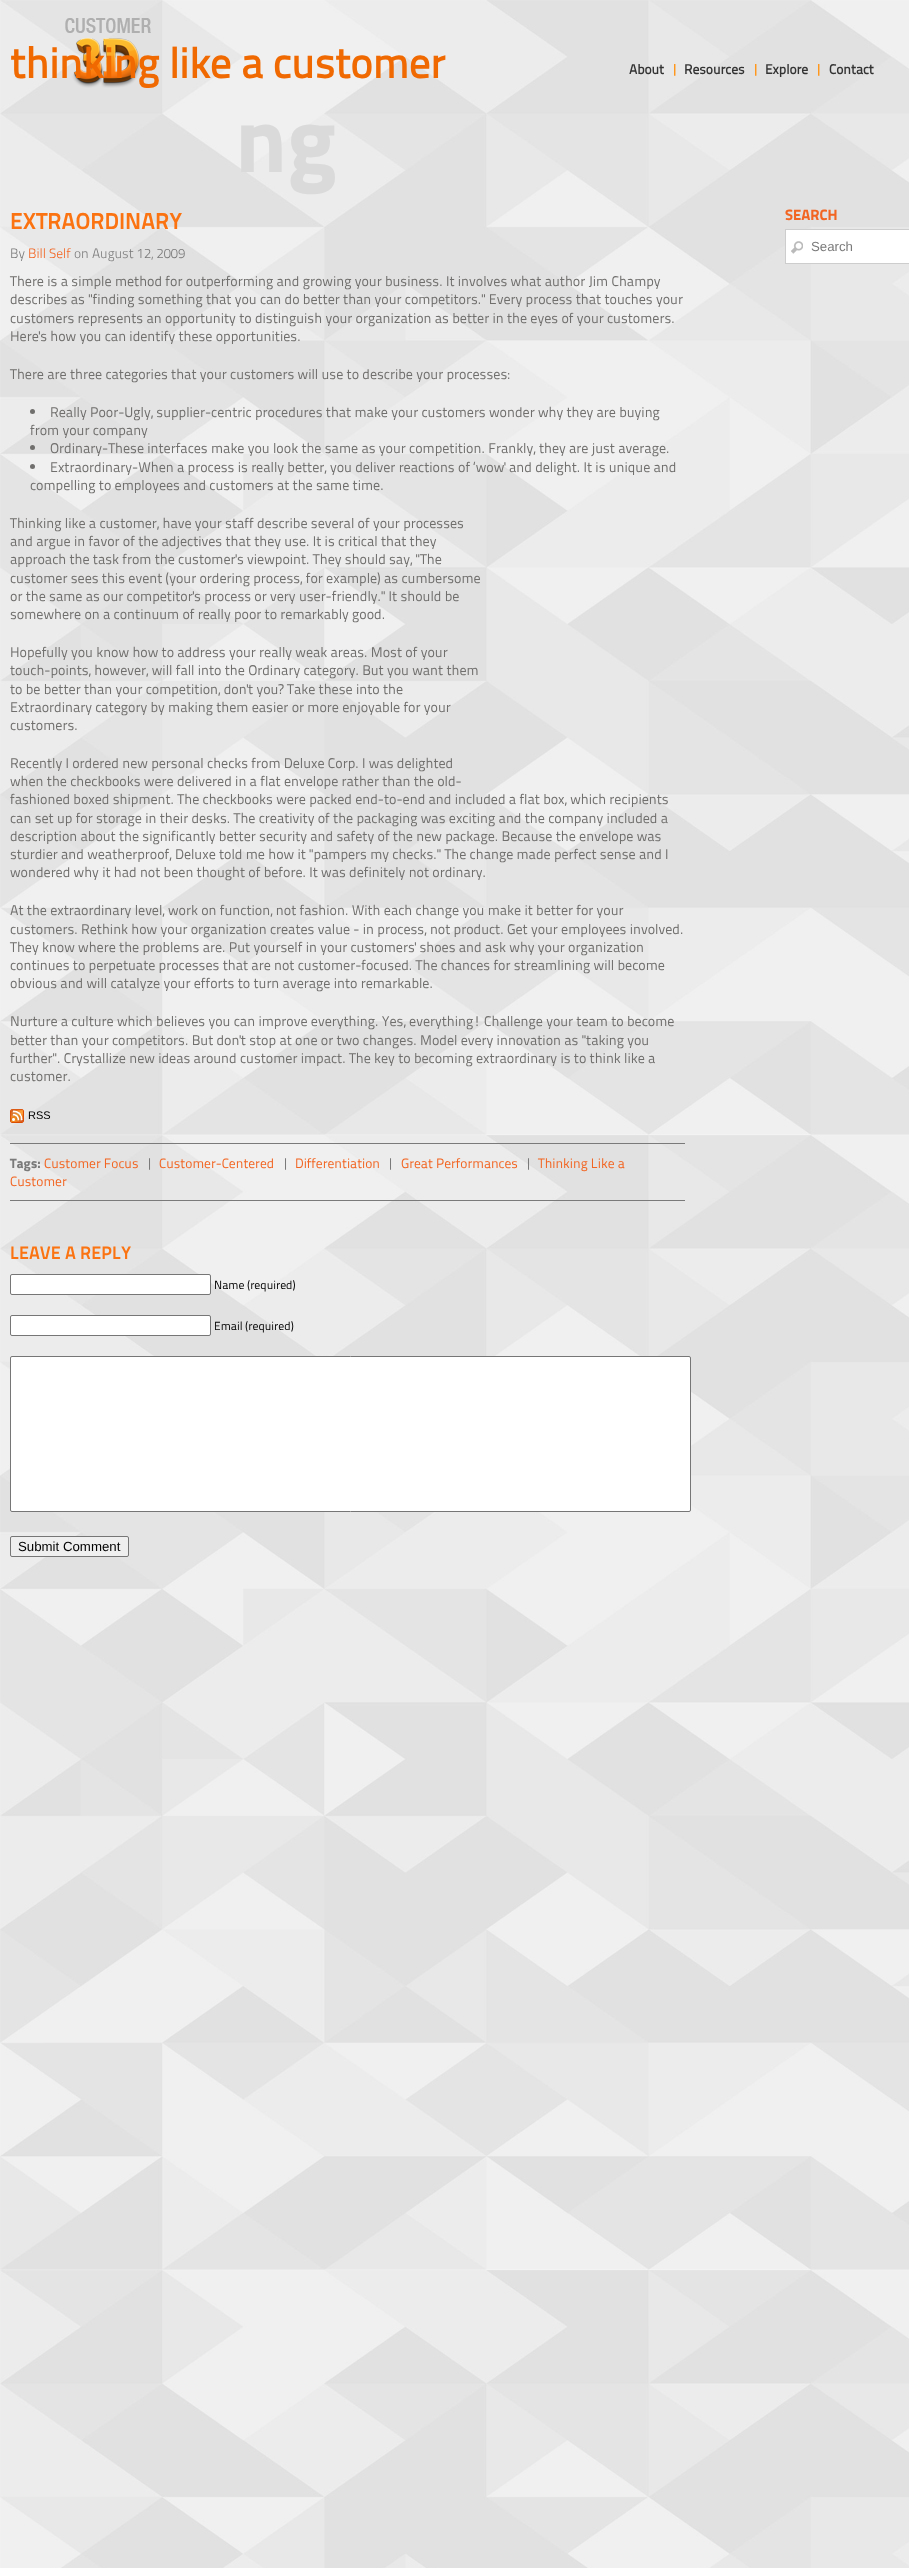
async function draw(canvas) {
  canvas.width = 909;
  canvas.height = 2568;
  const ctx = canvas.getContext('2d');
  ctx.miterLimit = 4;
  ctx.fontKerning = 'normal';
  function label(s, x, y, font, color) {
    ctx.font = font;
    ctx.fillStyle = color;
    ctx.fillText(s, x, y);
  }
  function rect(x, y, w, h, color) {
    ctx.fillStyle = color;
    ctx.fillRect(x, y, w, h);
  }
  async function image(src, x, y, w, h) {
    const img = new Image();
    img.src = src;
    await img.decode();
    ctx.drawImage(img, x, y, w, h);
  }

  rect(0, 0, 909, 2568, '#fff');
  await image('assets/img1.png', 0, 0, 909, 2568);
  await image('assets/img4.png', 65, 18, 86, 70);
  label('thinking like a customer', 10, 78, 'bold 42px "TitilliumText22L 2"', '#f06901');
  label('ng', 235, 172, 'bold 93px "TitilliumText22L"', '#dadada');
  label('EXTRAORDINARY', 10, 229, 'bold 23px "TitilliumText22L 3"', '#fb7311');
  label('By', 10, 258, '300 13.5px "TitilliumText22L"', '#7a7a7a');
  label('Bill Self', 28, 258, '300 13.5px "TitilliumText22L"', '#f26522');
  label('on August 12, 2009', 74, 258, '300 13.5px "TitilliumText22L"', '#7a7a7a');
  label('There is a simple method for outperforming and growing your business. It involves what author Jim Champy', 10, 286, '14px "TitilliumText22L"', '#706f6d');
  label('describes as "finding something that you can do better than your competitors." Every process that touches your', 10, 304, '14px "TitilliumText22L"', '#706f6d');
  label('customers represents an opportunity to distinguish your organization as better in the eyes of your customers.', 10, 323, '14px "TitilliumText22L"', '#706f6d');
  label('Here\'s how you can identify these opportunities.', 10, 341, '14px "TitilliumText22L"', '#706f6d');
  label('There are three categories that your customers will use to describe your processes:', 10, 379, '14px "TitilliumText22L"', '#706f6d');
  ctx.beginPath();
  ctx.arc(32.5, 411.5, 2.5, 0, 2 * Math.PI);
  ctx.fill();
  label('Really Poor-Ugly, supplier-centric procedures that make your customers wonder why they are buying', 50, 417, '14px "TitilliumText22L"', '#706f6d');
  label('from your company', 30, 435, '14px "TitilliumText22L"', '#706f6d');
  ctx.beginPath();
  ctx.arc(32.5, 447.5, 2.5, 0, 2 * Math.PI);
  ctx.fill();
  label('Ordinary-These interfaces make you look the same as your competition. Frankly, they are just average.', 50, 453, '14px "TitilliumText22L"', '#706f6d');
  ctx.beginPath();
  ctx.arc(32.5, 466.5, 2.5, 0, 2 * Math.PI);
  ctx.fill();
  label('Extraordinary-When a process is really better, you deliver reactions of ‘wow\' and delight. It is unique and', 50, 472, '14px "TitilliumText22L"', '#706f6d');
  label('compelling to employees and customers at the same time.', 30, 490, '14px "TitilliumText22L"', '#706f6d');
  label('Thinking like a customer, have your staff describe several of your processes', 10, 528, '14px "TitilliumText22L"', '#706f6d');
  label('and argue in favor of the adjectives that they use. It is critical that they', 10, 546, '14px "TitilliumText22L"', '#706f6d');
  label('approach the task from the customer\'s viewpoint. They should say, "The', 10, 564, '14px "TitilliumText22L"', '#706f6d');
  label('customer sees this event (your ordering process, for example) as cumbersome', 10, 583, '14px "TitilliumText22L"', '#706f6d');
  label('or the same as our competitor\'s process or very user-friendly." It should be', 10, 601, '14px "TitilliumText22L"', '#706f6d');
  label('somewhere on a continuum of really poor to remarkably good.', 10, 619, '14px "TitilliumText22L"', '#706f6d');
  label('Hopefully you know how to address your really weak areas. Most of your', 10, 657, '14px "TitilliumText22L"', '#706f6d');
  label('touch-points, however, will fall into the Ordinary category. But you want them', 10, 675, '14px "TitilliumText22L"', '#706f6d');
  label('to be better than your competition, don\'t you? Take these into the', 10, 694, '14px "TitilliumText22L"', '#706f6d');
  label('Extraordinary category by making them easier or more enjoyable for your', 10, 712, '14px "TitilliumText22L"', '#706f6d');
  label('customers.', 10, 730, '14px "TitilliumText22L"', '#706f6d');
  label('Recently I ordered new personal checks from Deluxe Corp. I was delighted', 10, 768, '14px "TitilliumText22L"', '#706f6d');
  label('when the checkbooks were delivered in a flat envelope rather than the old-', 10, 786, '14px "TitilliumText22L"', '#706f6d');
  label('fashioned boxed shipment. The checkbooks were packed end-to-end and included a flat box, which recipients', 10, 804, '14px "TitilliumText22L"', '#706f6d');
  label('can set up for storage in their desks. The creativity of the packaging was exciting and the company included a', 10, 823, '14px "TitilliumText22L"', '#706f6d');
  label('description about the significantly better security and safety of the new package. Because the envelope was', 10, 841, '14px "TitilliumText22L"', '#706f6d');
  label('sturdier and weatherproof, Deluxe told me how it "pampers my checks." The change made perfect sense and I', 10, 859, '14px "TitilliumText22L"', '#706f6d');
  label('wondered why it had not been thought of before. It was definitely not ordinary.', 10, 877, '14px "TitilliumText22L"', '#706f6d');
  label('At the extraordinary level, work on function, not fashion. With each change you make it better for your', 10, 915, '14px "TitilliumText22L"', '#706f6d');
  label('customers. Rethink how your organization creates value - in process, not product. Get your employees involved.', 10, 934, '14px "TitilliumText22L"', '#706f6d');
  label('They know where the problems are. Put yourself in your customers\' shoes and ask why your organization', 10, 952, '14px "TitilliumText22L"', '#706f6d');
  label('continues to perpetuate processes that are not customer-focused. The chances for streamlining will become', 10, 970, '14px "TitilliumText22L"', '#706f6d');
  label('obvious and will catalyze your efforts to turn average into remarkable.', 10, 988, '14px "TitilliumText22L"', '#706f6d');
  label('Nurture a culture which believes you can improve everything. Yes, everything! Challenge your team to become', 10, 1026, '14px "TitilliumText22L"', '#706f6d');
  label('better than your competitors. But don\'t stop at one or two changes. Model every innovation as "taking you', 10, 1045, '14px "TitilliumText22L"', '#706f6d');
  label('further". Crystallize new ideas around customer impact. The key to becoming extraordinary is to think like a', 10, 1063, '14px "TitilliumText22L"', '#706f6d');
  label('customer.', 10, 1081, '14px "TitilliumText22L"', '#706f6d');
  await image('assets/img2.png', 10, 1109, 14, 14);
  label('RSS', 28, 1119, '11px Liberation Sans', '#000');
  rect(10, 1143, 675, 1, '#7a7a7a');
  rect(10, 1200, 675, 1, '#7a7a7a');
  label('Tags:', 10, 1168, 'bold 13.5px "TitilliumText22L"', '#7a7a7a');
  label('Customer Focus', 44, 1168, '13.5px "TitilliumText22L"', '#f26522');
  label('|', 146, 1168, '13.5px "TitilliumText22L"', '#7a7a7a');
  label('Customer-Centered', 159, 1168, '13.5px "TitilliumText22L"', '#f26522');
  label('|', 282, 1168, '13.5px "TitilliumText22L"', '#7a7a7a');
  label('Differentiation', 295, 1168, '13.5px "TitilliumText22L"', '#f26522');
  label('|', 387, 1168, '13.5px "TitilliumText22L"', '#7a7a7a');
  label('Great Performances', 401, 1168, '13.5px "TitilliumText22L"', '#f26522');
  label('|', 525, 1168, '13.5px "TitilliumText22L"', '#7a7a7a');
  label('Thinking Like a', 538, 1168, '13.5px "TitilliumText22L"', '#f26522');
  label('Customer', 10, 1186, '13.5px "TitilliumText22L"', '#f26522');
  label('LEAVE A REPLY', 10, 1259, 'bold 18px "TitilliumText22L 3"', '#fb7311');
  ctx.fillStyle = '#fff';
  ctx.beginPath();
  ctx.roundRect(10.5, 1274.5, 200, 20, 1.5);
  ctx.fill();
  ctx.strokeStyle = '#767676';
  ctx.stroke();
  label('Name (required)', 214, 1289, '11.75px "TitilliumText22L"', '#000');
  ctx.fillStyle = '#fff';
  ctx.beginPath();
  ctx.roundRect(10.5, 1315.5, 200, 20, 1.5);
  ctx.fill();
  ctx.stroke();
  label('Email (required)', 214, 1330, '11.75px "TitilliumText22L"', '#000');
  ctx.fillStyle = '#fff';
  ctx.beginPath();
  ctx.roundRect(10.5, 1356.5, 680, 155, 1.5);
  ctx.fill();
  ctx.stroke();
  ctx.fillStyle = '#efefef';
  ctx.beginPath();
  ctx.roundRect(10.5, 1536.5, 118, 20, 1.5);
  ctx.fill();
  ctx.stroke();
  label('Submit Comment', 18, 1551, '13.25px Liberation Sans', '#000');
  label('SEARCH', 785, 220, 'bold 15px "TitilliumText22L"', '#f26522');
  rect(786, 230, 123, 33, '#fff');
  await image('assets/img3.png', 791, 241, 12, 13);
  ctx.strokeStyle = '#cdcdcd';
  ctx.strokeRect(785.5, 229.5, 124, 34);
  label('Search', 811, 251, '13.25px Liberation Sans', '#7a7a7a');
  label('About', 629, 74, 'bold 13.5px "TitilliumText22L 2"', '#333');
  label('|', 671, 74, 'bold 13.5px "TitilliumText22L 2"', '#ff971c');
  label('Resources', 684, 74, 'bold 13.5px "TitilliumText22L 2"', '#333');
  label('|', 752, 74, 'bold 13.5px "TitilliumText22L 2"', '#ff971c');
  label('Explore', 765, 74, 'bold 13.5px "TitilliumText22L 2"', '#333');
  label('|', 815, 74, 'bold 13.5px "TitilliumText22L 2"', '#ff971c');
  label('Contact', 829, 74, 'bold 13.5px "TitilliumText22L 2"', '#333');
}

draw(document.querySelector('canvas'));
